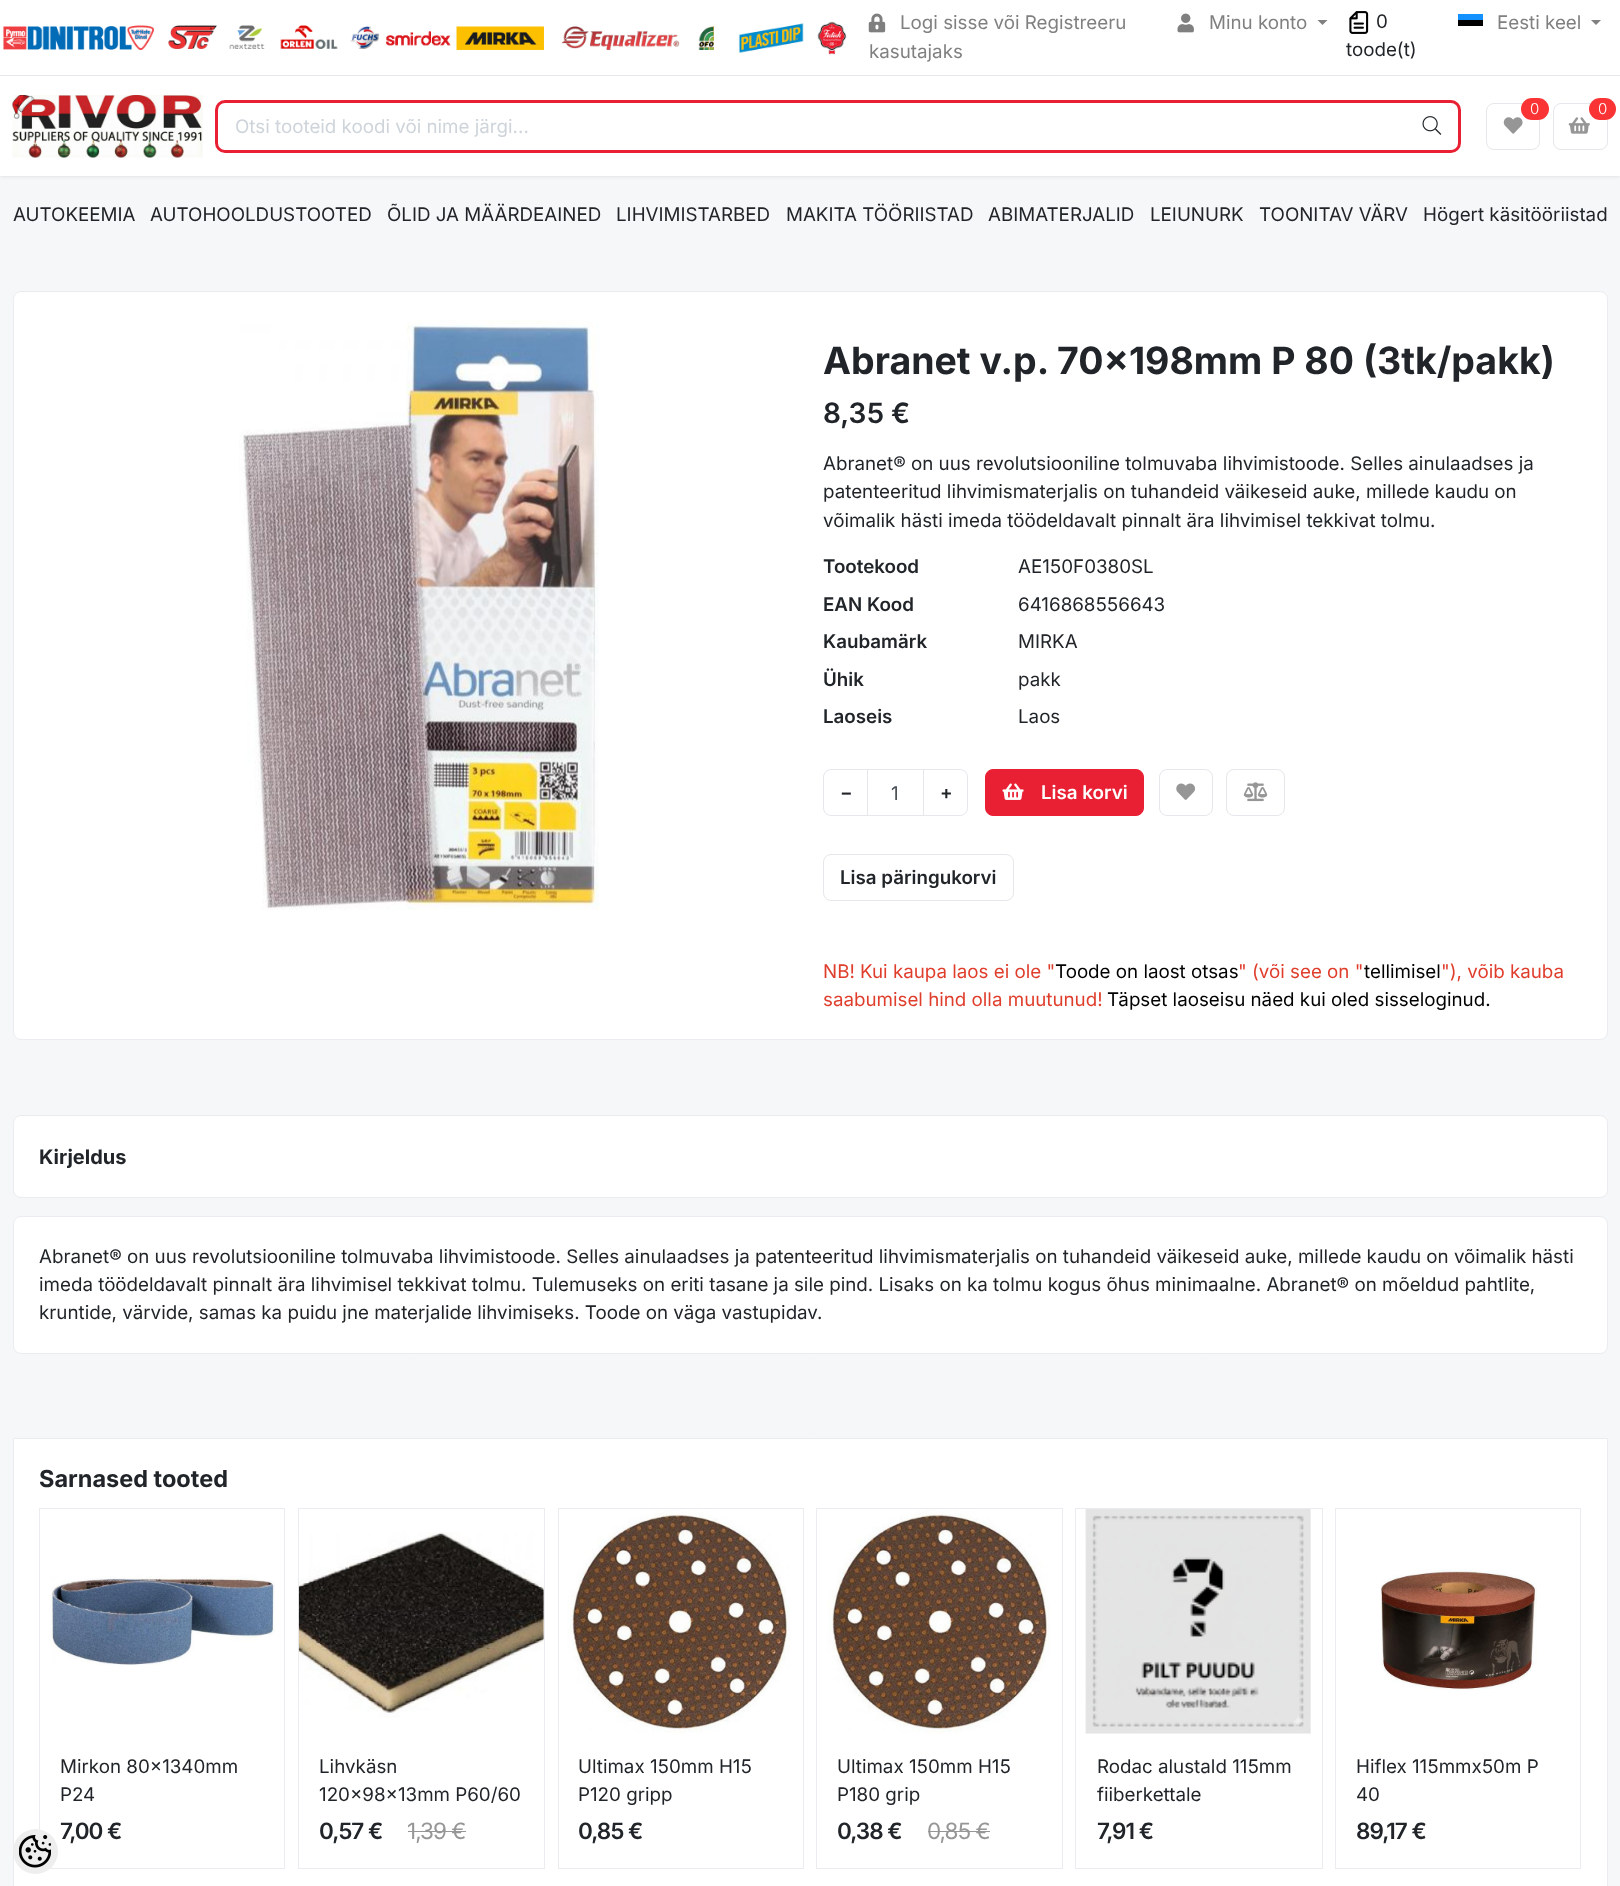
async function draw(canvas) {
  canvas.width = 1620;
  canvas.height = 1886;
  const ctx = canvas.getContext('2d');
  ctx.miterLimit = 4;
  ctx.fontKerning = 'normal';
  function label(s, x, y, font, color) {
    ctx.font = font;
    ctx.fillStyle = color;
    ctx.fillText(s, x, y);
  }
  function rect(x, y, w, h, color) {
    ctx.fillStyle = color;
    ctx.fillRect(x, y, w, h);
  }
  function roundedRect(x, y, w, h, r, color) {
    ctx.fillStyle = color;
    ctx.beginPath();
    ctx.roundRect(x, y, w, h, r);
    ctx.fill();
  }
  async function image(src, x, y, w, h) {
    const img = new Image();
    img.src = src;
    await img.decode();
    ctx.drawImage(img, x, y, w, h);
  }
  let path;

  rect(0, 0, 1620, 1886, '#f6f7f9');
  ctx.fillStyle = '#33333326';
  ctx.filter = 'blur(2px)';
  ctx.beginPath();
  ctx.rect(0, 0, 1620, 176);
  ctx.fill();
  ctx.filter = 'none';
  rect(0, 0, 1620, 176, '#fff');
  rect(0, 75, 1620, 1, '#e5e7ea');
  await image('assets/img1.png', 3, 21, 844, 34);
  await image('assets/img2.png', 868, 13, 18, 20);
  label('Logi sisse või Registreeru', 900, 29, '18.75px Inter', '#808080');
  label('kasutajaks', 869, 58, '18.75px Inter', '#808080');
  await image('assets/img3.png', 1177, 13, 17, 20);
  label('Minu konto', 1209, 29, '18.75px Inter', '#808080');
  path = new Path2D('M1317.5 20H1327.5L1322.5 25Z');
  ctx.fill(path);
  await image('assets/img4.png', 1349, 11, 20, 23);
  label('0', 1376, 28, '18.75px Inter', '#212529');
  label('toode(t)', 1346, 56, '18.75px Inter', '#212529');
  rect(1458, 20, 25, 6, '#000');
  rect(1458, 14, 25, 6, '#1291ff');
  label('Eesti keel', 1497, 29, '18.75px Inter', '#808080');
  path = new Path2D('M1591 20H1601L1596 25Z');
  ctx.fill(path);
  await image('assets/img5.png', 12, 95, 191, 63);
  ctx.beginPath();
  ctx.roundRect(1486.5, 103.5, 53, 46, 7.5);
  ctx.strokeStyle = '#e5e7ea';
  ctx.stroke();
  await image('assets/img6.png', 1503, 117, 20, 17);
  roundedRect(1521, 98, 28, 22, 11, '#fa3434');
  label('0', 1530, 114, '300 15px Inter', '#fff');
  ctx.beginPath();
  ctx.roundRect(1553.5, 103.5, 54, 46, 7.5);
  ctx.stroke();
  await image('assets/img7.png', 1568, 117, 22, 17);
  roundedRect(1589, 98, 27, 22, 11, '#fa3434');
  label('0', 1598, 114, '300 15px Inter', '#fff');
  ctx.beginPath();
  ctx.roundRect(216.5, 101.5, 1243, 50, 8.5);
  ctx.strokeStyle = '#e92034';
  ctx.lineWidth = 3;
  ctx.stroke();
  label('Otsi tooteid koodi või nime järgi...', 235, 133, '18.75px Inter', '#ced4da');
  await image('assets/img8.png', 1422, 116, 20, 19);
  label('AUTOKEEMIA', 13, 221, '18.75px Inter', '#212529');
  label('AUTOHOOLDUSTOOTED', 150, 221, '18.75px Inter', '#212529');
  label('ÕLID JA MÄÄRDEAINED', 387, 221, '18.75px Inter', '#212529');
  label('LIHVIMISTARBED', 616, 221, '18.75px Inter', '#212529');
  label('MAKITA TÖÖRIISTAD', 786, 221, '18.75px Inter', '#212529');
  label('ABIMATERJALID', 988, 221, '18.75px Inter', '#212529');
  label('LEIUNURK', 1150, 221, '18.75px Inter', '#212529');
  label('TOONITAV VÄRV', 1259, 221, '18.75px Inter', '#212529');
  label('Högert käsitööriistad', 1423, 221, '18.75px Inter', '#212529');
  ctx.fillStyle = '#fff';
  ctx.beginPath();
  ctx.roundRect(13.5, 291.5, 1594, 748, 7.5);
  ctx.fill();
  ctx.strokeStyle = '#ebecf0';
  ctx.lineWidth = 1;
  ctx.stroke();
  await image('assets/img9.png', 239, 320, 360, 590);
  label('Abranet v.p. 70x198mm P 80 (3tk/pakk)', 823, 374, 'bold 37.5px Inter', '#212529');
  label('8,35 €', 823, 423, '600 28px Inter', '#212529');
  label('Abranet® on uus revolutsiooniline tolmuvaba lihvimistoode. Selles ainulaadses ja', 823, 470, '18.75px Inter', '#212529');
  label('patenteeritud lihvimismaterjalis on tuhandeid väikeseid auke, millede kaudu on', 823, 498, '18.75px Inter', '#212529');
  label('võimalik hästi imeda töödeldavalt pinnalt ära lihvimisel tekkivat tolmu.', 823, 527, '18.75px Inter', '#212529');
  label('Tootekood', 823, 573, '600 18.75px Inter', '#212529');
  label('AE150F0380SL', 1018, 573, '18.75px Inter', '#212529');
  label('EAN Kood', 823, 611, '600 18.75px Inter', '#212529');
  label('6416868556643', 1018, 611, '18.75px Inter', '#212529');
  label('Kaubamärk', 823, 648, '600 18.75px Inter', '#212529');
  label('MIRKA', 1018, 648, '18.75px Inter', '#212529');
  label('Ühik', 823, 686, '600 18.75px Inter', '#212529');
  label('pakk', 1018, 686, '18.75px Inter', '#212529');
  label('Laoseis', 823, 723, '600 18.75px Inter', '#212529');
  label('Laos', 1018, 723, '18.75px Inter', '#212529');
  ctx.strokeStyle = '#e5e7ea';
  ctx.strokeRect(866.5, 769.5, 57, 46);
  ctx.fillStyle = '#fff';
  ctx.beginPath();
  ctx.roundRect(823.5, 769.5, 44, 46, [7.5, 0, 0, 7.5]);
  ctx.fill();
  ctx.stroke();
  label('−', 840, 799, '600 18.75px Inter', '#212529');
  label('1', 891, 800, '18.75px Inter', '#495057');
  ctx.fillStyle = '#fff';
  ctx.beginPath();
  ctx.roundRect(923.5, 769.5, 44, 46, [0, 7.5, 7.5, 0]);
  ctx.fill();
  ctx.stroke();
  label('+', 940, 799, '600 18.75px Inter', '#212529');
  ctx.fillStyle = '#e92034';
  ctx.beginPath();
  ctx.roundRect(985.5, 769.5, 158, 46, 7.5);
  ctx.fill();
  ctx.strokeStyle = '#e92034';
  ctx.stroke();
  await image('assets/img10.png', 1002, 783, 22, 17);
  label('Lisa korvi', 1041, 799, '600 18.75px Inter', '#fff');
  ctx.beginPath();
  ctx.roundRect(1159.5, 769.5, 53, 46, 7.5);
  ctx.strokeStyle = '#e5e7ea';
  ctx.stroke();
  await image('assets/img11.png', 1176, 783, 19, 17);
  ctx.beginPath();
  ctx.roundRect(1226.5, 769.5, 58, 46, 7.5);
  ctx.stroke();
  await image('assets/img12.png', 1243, 782, 25, 20);
  ctx.beginPath();
  ctx.roundRect(823.5, 854.5, 190, 46, 7.5);
  ctx.stroke();
  label('Lisa päringukorvi', 840, 884, '600 18.75px Inter', '#212529');
  label('NB! Kui kaupa laos ei ole "', 823, 978, '18.75px Inter', '#e03e2d');
  label('Toode on laost otsas', 1055, 978, '18.75px Inter', '#000');
  label('" (või see on "', 1238, 978, '18.75px Inter', '#e03e2d');
  label('tellimisel', 1364, 978, '18.75px Inter', '#000');
  label('"), võib kauba', 1441, 978, '18.75px Inter', '#e03e2d');
  label('saabumisel hind olla muutunud!', 823, 1006, '18.75px Inter', '#e03e2d');
  label('Täpset laoseisu näed kui oled sisseloginud.', 1107, 1006, '18.75px Inter', '#000');
  ctx.fillStyle = '#fff';
  ctx.beginPath();
  ctx.roundRect(13.5, 1115.5, 1594, 82, 7.5);
  ctx.fill();
  ctx.strokeStyle = '#ebecf0';
  ctx.stroke();
  label('Kirjeldus', 39, 1164, 'bold 20px Inter', '#212529');
  ctx.fillStyle = '#fff';
  ctx.beginPath();
  ctx.roundRect(13.5, 1216.5, 1594, 137, 7.5);
  ctx.fill();
  ctx.stroke();
  label('Abranet® on uus revolutsiooniline tolmuvaba lihvimistoode. Selles ainulaadses ja patenteeritud lihvimismaterjalis on tuhandeid väikeseid auke, millede kaudu on võimalik hästi', 39, 1263, '18.75px Inter', '#212529');
  label('imeda töödeldavalt pinnalt ära lihvimisel tekkivat tolmu. Tulemuseks on eriti tasane ja sile pind. Lisaks on ka tolmu kogus õhus minimaalne. Abranet® on mõeldud pahtlite,', 39, 1291, '18.75px Inter', '#212529');
  label('kruntide, värvide, samas ka puidu jne materjalide lihvimiseks. Toode on väga vastupidav.', 39, 1319, '18.75px Inter', '#212529');
  ctx.fillStyle = '#fff';
  ctx.beginPath();
  ctx.rect(13.5, 1438.5, 1594, 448);
  ctx.fill();
  ctx.stroke();
  label('Sarnased tooted', 39, 1487, 'bold 23.5px Inter', '#212529');
  ctx.strokeRect(39.5, 1508.5, 245, 360);
  await image('assets/img13.png', 50, 1575, 225, 90);
  label('Mirkon 80x1340mm', 60, 1773, '18.75px Inter', '#212529');
  label('P24', 60, 1801, '18.75px Inter', '#212529');
  ctx.letterSpacing = '-1px';
  label('7,00 €', 60, 1839, '600 22.5px Inter', '#212529');
  ctx.strokeRect(298.5, 1508.5, 246, 360);
  await image('assets/img14.png', 298, 1532, 246, 186);
  ctx.letterSpacing = '0px';
  label('Lihvkäsn', 319, 1773, '18.75px Inter', '#212529');
  label('120x98x13mm P60/60', 319, 1801, '18.75px Inter', '#212529');
  ctx.letterSpacing = '-1px';
  label('0,57 €', 319, 1839, '600 22.5px Inter', '#212529');
  label('1,39 €', 407, 1839, '22.5px Inter', '#969696');
  rect(408, 1831, 58, 1, '#969696');
  ctx.strokeRect(558.5, 1508.5, 245, 360);
  await image('assets/img15.png', 567, 1509, 223, 225);
  ctx.letterSpacing = '0px';
  label('Ultimax 150mm H15', 578, 1773, '18.75px Inter', '#212529');
  label('P120 gripp', 578, 1801, '18.75px Inter', '#212529');
  ctx.letterSpacing = '-1px';
  label('0,85 €', 578, 1839, '600 22.5px Inter', '#212529');
  ctx.strokeRect(816.5, 1508.5, 246, 360);
  await image('assets/img16.png', 827, 1509, 223, 225);
  ctx.letterSpacing = '0px';
  label('Ultimax 150mm H15', 837, 1773, '18.75px Inter', '#212529');
  label('P180 grip', 837, 1801, '18.75px Inter', '#212529');
  ctx.letterSpacing = '-1px';
  label('0,38 €', 837, 1839, '600 22.5px Inter', '#212529');
  label('0,85 €', 927, 1839, '22.5px Inter', '#969696');
  rect(928, 1831, 62, 1, '#969696');
  ctx.strokeRect(1075.5, 1508.5, 247, 360);
  await image('assets/img17.png', 1085, 1509, 226, 225);
  ctx.letterSpacing = '0px';
  label('Rodac alustald 115mm', 1097, 1773, '18.75px Inter', '#212529');
  label('fiiberkettale', 1097, 1801, '18.75px Inter', '#212529');
  ctx.letterSpacing = '-1px';
  label('7,91 €', 1097, 1839, '600 22.5px Inter', '#212529');
  ctx.strokeRect(1335.5, 1508.5, 245, 360);
  await image('assets/img18.png', 1381, 1569, 156, 121);
  ctx.letterSpacing = '0px';
  label('Hiflex 115mmx50m P', 1356, 1773, '18.75px Inter', '#212529');
  label('40', 1356, 1801, '18.75px Inter', '#212529');
  ctx.letterSpacing = '-1px';
  label('89,17 €', 1356, 1839, '600 22.5px Inter', '#212529');
  ctx.fillStyle = '#eee';
  ctx.beginPath();
  ctx.arc(35.5, 1851.5, 22.5, 0, 2 * Math.PI);
  ctx.fill();
  await image('assets/img19.png', 19, 1835, 32, 33);
}

draw(document.querySelector('canvas'));
